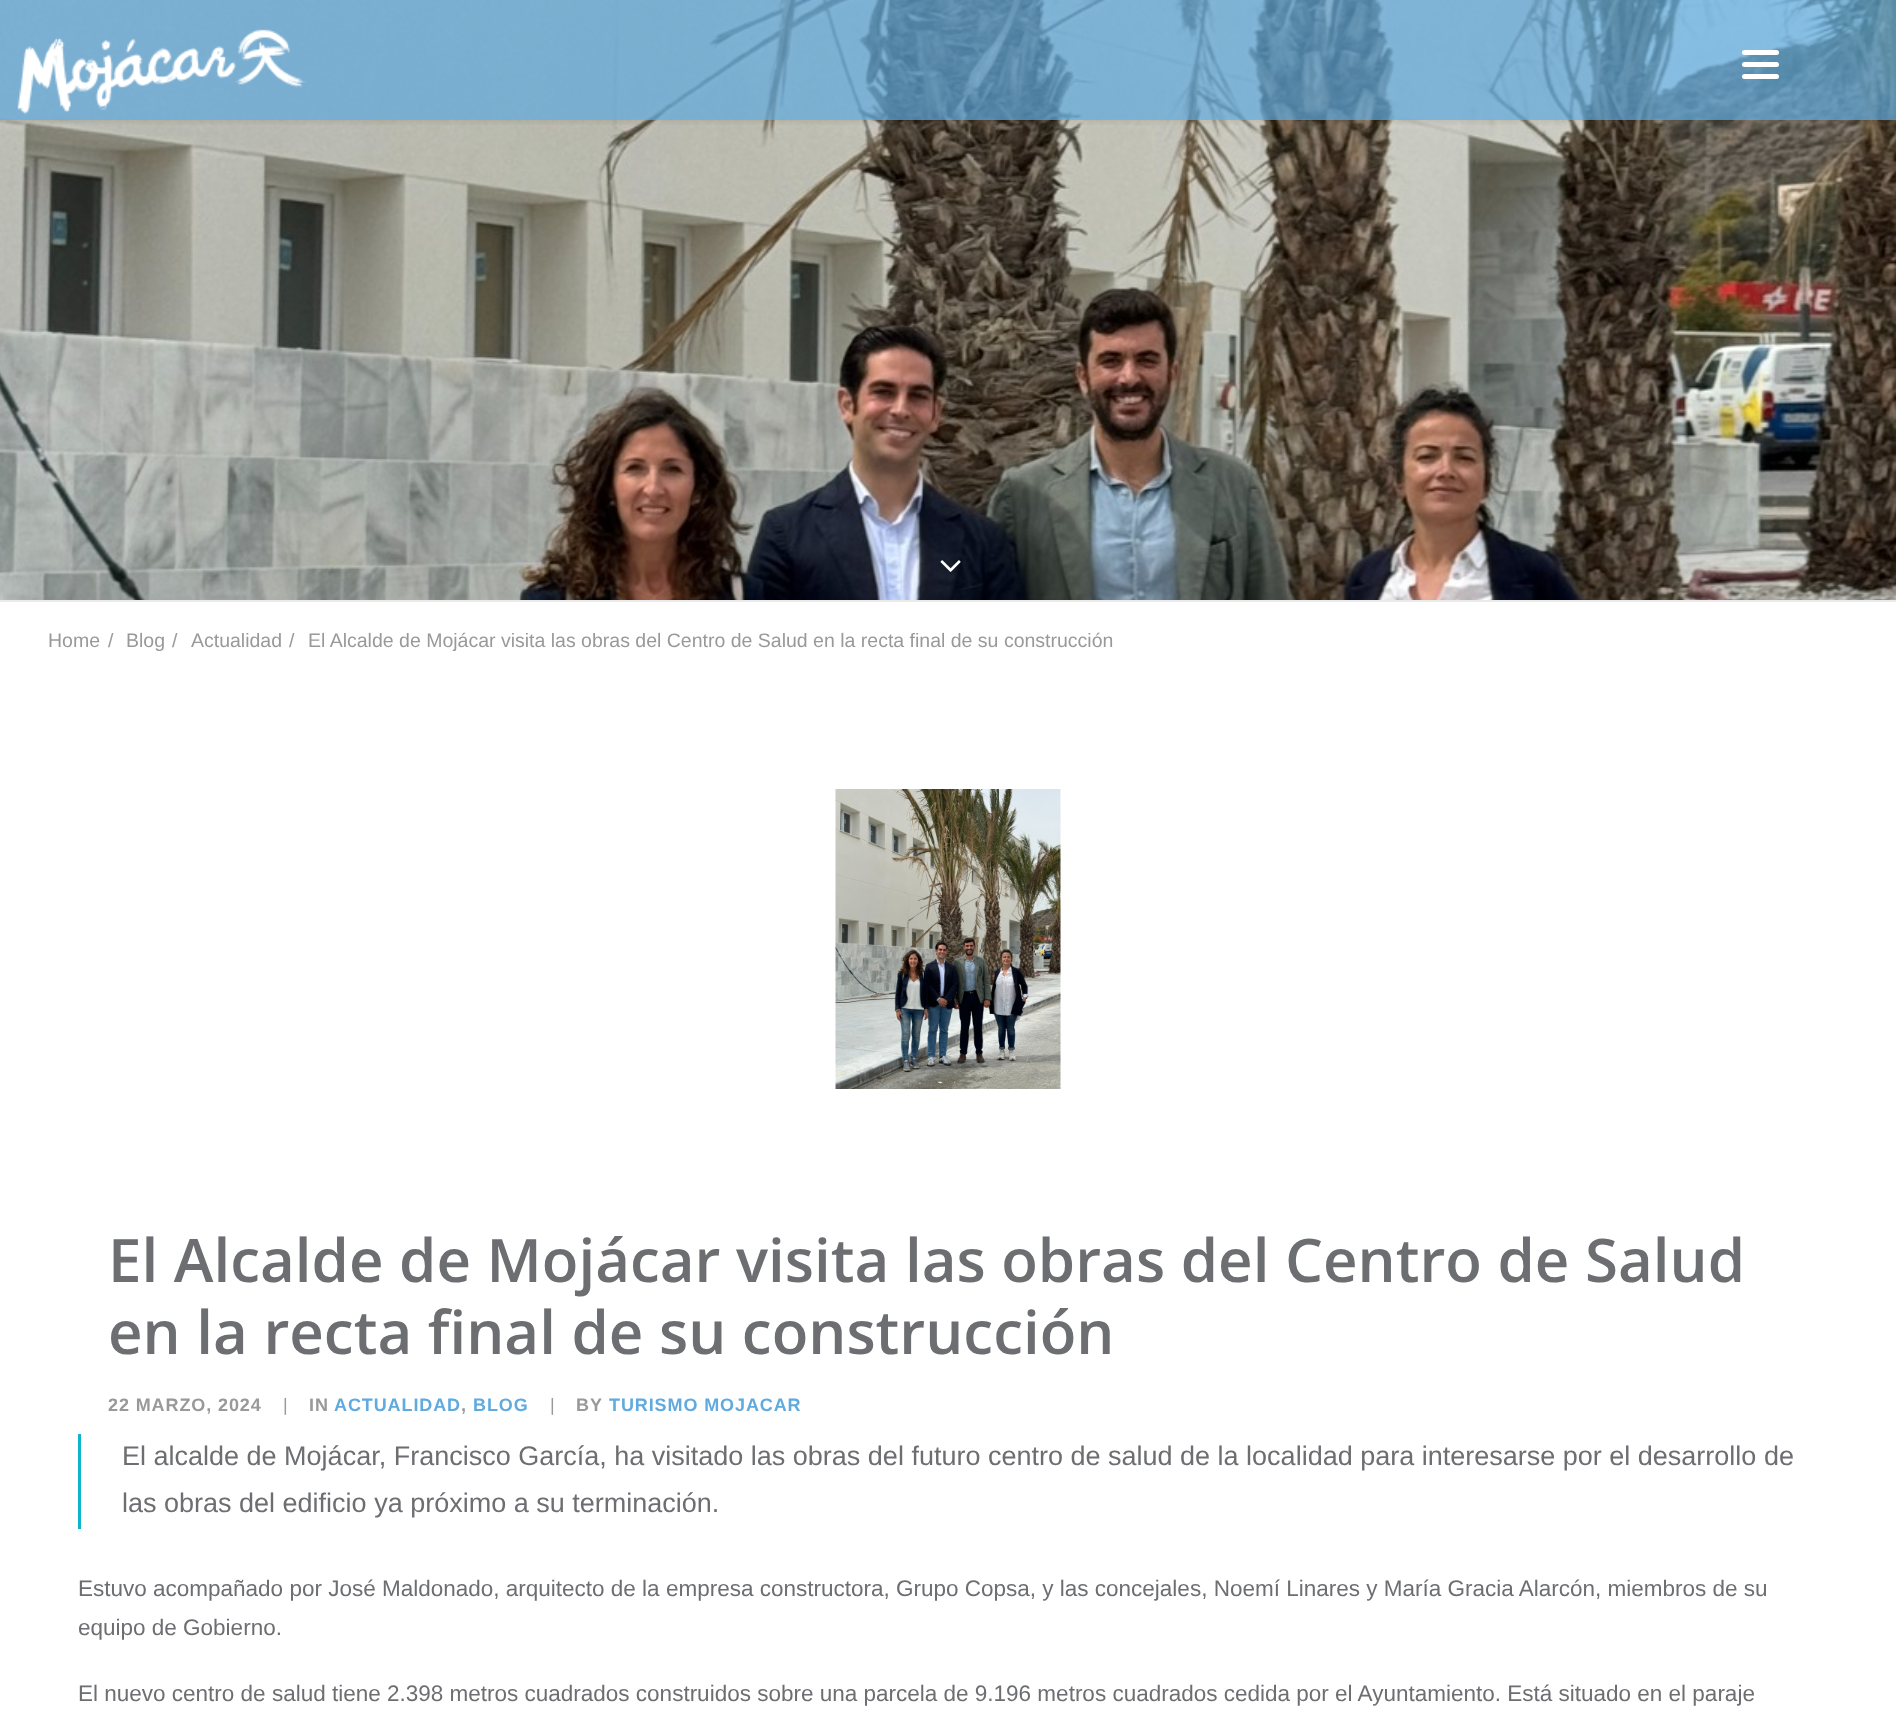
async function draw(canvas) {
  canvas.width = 1896;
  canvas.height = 1712;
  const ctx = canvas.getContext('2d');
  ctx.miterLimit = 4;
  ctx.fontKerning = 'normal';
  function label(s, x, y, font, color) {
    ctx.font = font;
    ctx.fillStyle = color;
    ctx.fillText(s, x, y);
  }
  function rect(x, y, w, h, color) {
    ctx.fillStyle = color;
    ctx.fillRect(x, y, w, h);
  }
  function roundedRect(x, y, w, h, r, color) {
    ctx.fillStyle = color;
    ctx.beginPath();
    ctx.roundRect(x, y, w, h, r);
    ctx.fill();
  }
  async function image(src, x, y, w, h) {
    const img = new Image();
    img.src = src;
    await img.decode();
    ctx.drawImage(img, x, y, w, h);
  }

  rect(0, 0, 1896, 1712, '#fff');
  await image('assets/img2.png', 0, 0, 1896, 600);
  ctx.save();
  ctx.beginPath();
  ctx.rect(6, 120, 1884, 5);
  ctx.clip();
  ctx.fillStyle = '#00000099';
  ctx.filter = 'blur(7.5px)';
  ctx.beginPath();
  ctx.rect(9, 21, 1878, 90);
  ctx.fill();
  ctx.filter = 'none';
  ctx.restore();
  rect(0, 0, 1896, 120, '#60aadeb3');
  roundedRect(1742, 62, 37, 5, 2.5, '#fff');
  roundedRect(1742, 50, 37, 5, 2.5, '#fff');
  roundedRect(1742, 74, 37, 5, 2.5, '#fff');
  await image('assets/img1.png', 17, 29, 289, 86);
  await image('assets/img3.png', 940, 560, 21, 12);
  rect(0, 600, 1896, 2, '#eaeaea');
  label('Home', 48, 647, '19.5px Liberation Sans', '#999');
  label('/', 108, 647, '19.5px Liberation Sans', '#999');
  label('Blog', 126, 647, '19.5px Liberation Sans', '#999');
  label('/', 172, 647, '19.5px Liberation Sans', '#999');
  label('Actualidad', 191, 647, '19.5px Liberation Sans', '#999');
  label('/', 289, 647, '19.5px Liberation Sans', '#999');
  label('El Alcalde de Mojácar visita las obras del Centro de Salud en la recta final de su construcción', 308, 647, '19.5px Liberation Sans', '#999');
  await image('assets/img4.png', 835, 789, 226, 300);
  label('El Alcalde de Mojácar visita las obras del Centro de Salud', 108, 1282, '600 60px Open Sans', '#6d6e71');
  label('en la recta final de su construcción', 108, 1354, '600 60px Open Sans', '#6d6e71');
  ctx.letterSpacing = '0.9px';
  label('22 MARZO, 2024', 108, 1411, 'bold 18px Liberation Sans', '#999');
  label('|', 283, 1411, '18px Liberation Sans', '#999');
  label('IN', 309, 1411, 'bold 18px Liberation Sans', '#999');
  label('ACTUALIDAD', 334, 1411, 'bold 18px Liberation Sans', '#60aade');
  label(',', 461, 1411, 'bold 18px Liberation Sans', '#999');
  label('BLOG', 473, 1411, 'bold 18px Liberation Sans', '#60aade');
  label('|', 550, 1411, '18px Liberation Sans', '#999');
  label('BY', 576, 1411, 'bold 18px Liberation Sans', '#999');
  label('TURISMO MOJACAR', 609, 1411, 'bold 18px Liberation Sans', '#60aade');
  rect(78, 1434, 3, 95, '#0cb4ce');
  ctx.letterSpacing = '0px';
  label('El alcalde de Mojácar, Francisco García, ha visitado las obras del futuro centro de salud de la localidad para interesarse por el desarrollo de', 122, 1465, '27px Liberation Sans', '#6d6e71');
  label('las obras del edificio ya próximo a su terminación.', 122, 1512, '27px Liberation Sans', '#6d6e71');
  label('Estuvo acompañado por José Maldonado, arquitecto de la empresa constructora, Grupo Copsa, y las concejales, Noemí Linares y María Gracia Alarcón, miembros de su', 78, 1596, '22.5px Liberation Sans', '#6d6e71');
  label('equipo de Gobierno.', 78, 1635, '22.5px Liberation Sans', '#6d6e71');
  label('El nuevo centro de salud tiene 2.398 metros cuadrados construidos sobre una parcela de 9.196 metros cuadrados cedida por el Ayuntamiento. Está situado en el paraje', 78, 1701, '22.5px Liberation Sans', '#6d6e71');
}

draw(document.querySelector('canvas'));
